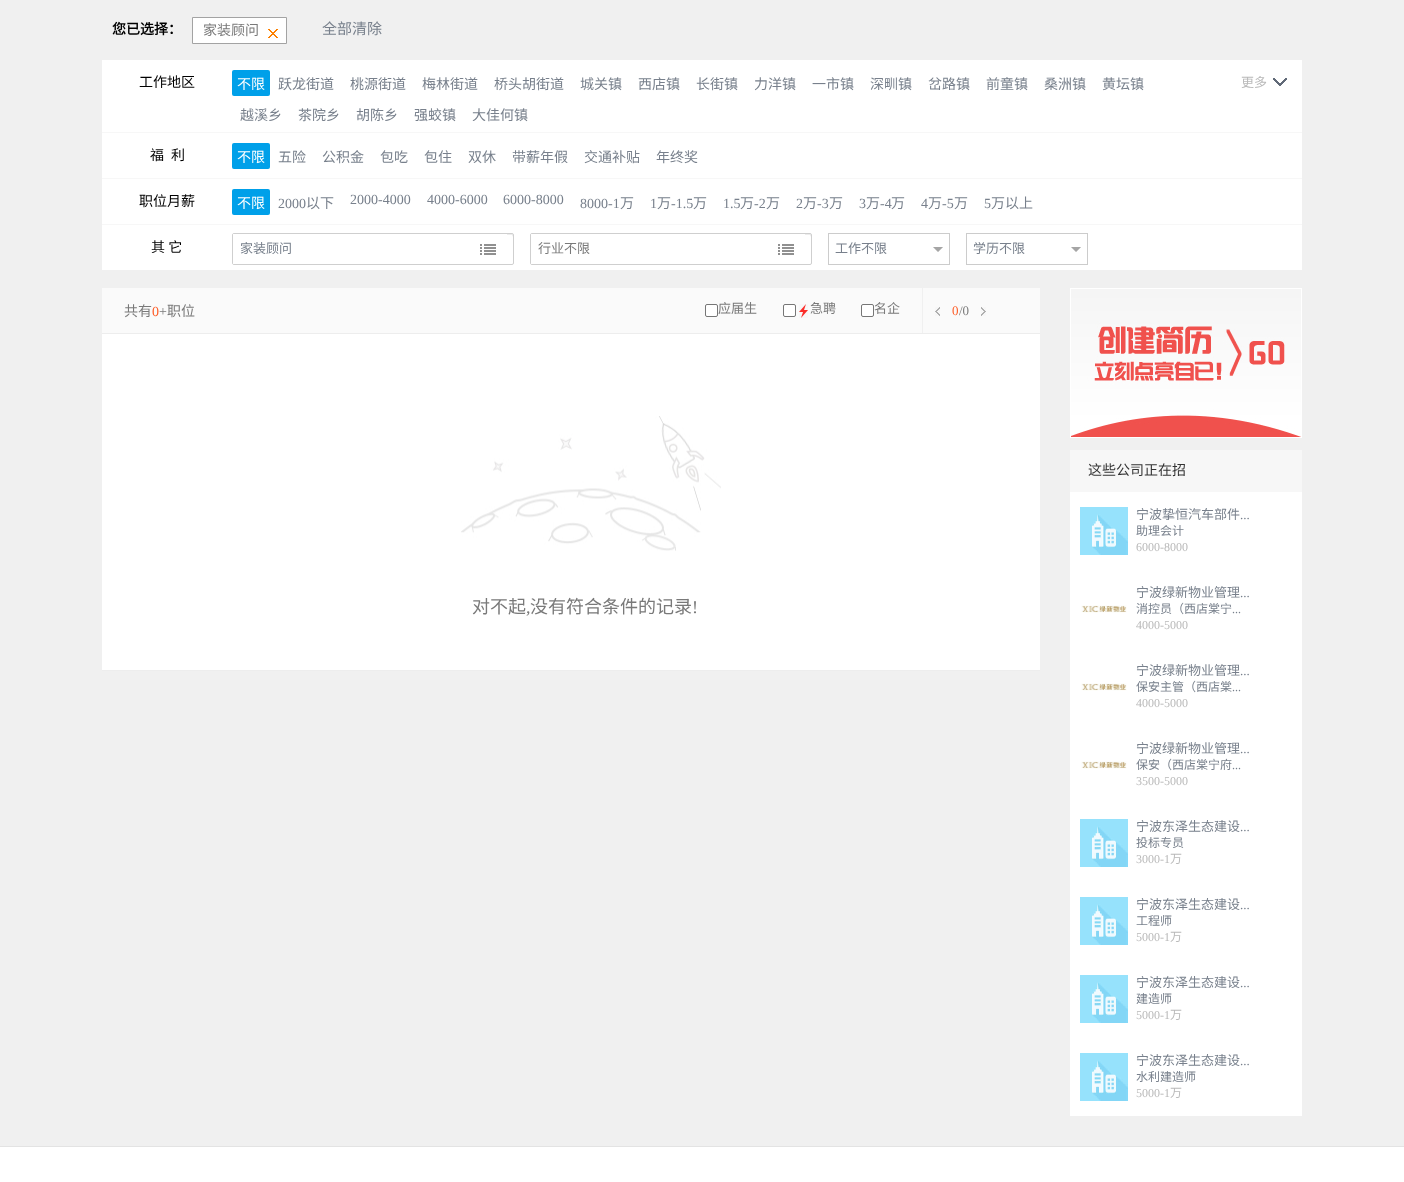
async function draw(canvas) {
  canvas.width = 1404;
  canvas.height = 1182;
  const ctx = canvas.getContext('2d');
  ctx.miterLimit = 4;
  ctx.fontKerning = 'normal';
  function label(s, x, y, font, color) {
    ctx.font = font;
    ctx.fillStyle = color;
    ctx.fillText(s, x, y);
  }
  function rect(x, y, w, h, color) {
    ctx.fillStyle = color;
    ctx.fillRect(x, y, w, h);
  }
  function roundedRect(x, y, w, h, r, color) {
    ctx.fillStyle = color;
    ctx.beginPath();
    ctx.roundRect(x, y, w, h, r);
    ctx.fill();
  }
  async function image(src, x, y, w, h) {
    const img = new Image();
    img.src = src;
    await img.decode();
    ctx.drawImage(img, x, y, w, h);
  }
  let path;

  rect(0, 0, 1404, 1182, '#fff');
  rect(0, 0, 1404, 1146, '#f0f0f0');
  label('您已选择：', 112, 34, 'bold 14px Noto Sans CJK SC', '#000');
  ctx.fillStyle = '#fff';
  ctx.beginPath();
  ctx.rect(192.5, 17.5, 94, 26);
  ctx.fill();
  ctx.strokeStyle = '#a3a3a3';
  ctx.stroke();
  label('家装顾问', 203, 35, '14px Noto Sans CJK SC', '#797979');
  await image('assets/img1.png', 268, 29, 10, 9);
  label('全部清除', 322, 34, '15px Noto Sans CJK SC', '#78808c');
  rect(102, 60, 1200, 210, '#fff');
  rect(102, 132, 1200, 1, '#f7f7f7');
  label('工作地区', 139, 87, '14px Noto Sans CJK SC', '#000');
  roundedRect(232, 70, 38, 26, 2, '#00a0e9');
  label('不限', 237, 89, '14px Noto Sans CJK SC', '#fff');
  label('跃龙街道', 278, 89, '14px Noto Sans CJK SC', '#78808c');
  label('桃源街道', 350, 89, '14px Noto Sans CJK SC', '#78808c');
  label('梅林街道', 422, 89, '14px Noto Sans CJK SC', '#78808c');
  label('桥头胡街道', 494, 89, '14px Noto Sans CJK SC', '#78808c');
  label('城关镇', 580, 89, '14px Noto Sans CJK SC', '#78808c');
  label('西店镇', 638, 89, '14px Noto Sans CJK SC', '#78808c');
  label('长街镇', 696, 89, '14px Noto Sans CJK SC', '#78808c');
  label('力洋镇', 754, 89, '14px Noto Sans CJK SC', '#78808c');
  label('一市镇', 812, 89, '14px Noto Sans CJK SC', '#78808c');
  label('深甽镇', 870, 89, '14px Noto Sans CJK SC', '#78808c');
  label('岔路镇', 928, 89, '14px Noto Sans CJK SC', '#78808c');
  label('前童镇', 986, 89, '14px Noto Sans CJK SC', '#78808c');
  label('桑洲镇', 1044, 89, '14px Noto Sans CJK SC', '#78808c');
  label('黄坛镇', 1102, 89, '14px Noto Sans CJK SC', '#78808c');
  label('越溪乡', 240, 120, '14px Noto Sans CJK SC', '#78808c');
  label('茶院乡', 298, 120, '14px Noto Sans CJK SC', '#78808c');
  label('胡陈乡', 356, 120, '14px Noto Sans CJK SC', '#78808c');
  label('强蛟镇', 414, 120, '14px Noto Sans CJK SC', '#78808c');
  label('大佳何镇', 472, 120, '14px Noto Sans CJK SC', '#78808c');
  label('更多', 1241, 87, '13px Noto Sans CJK SC', '#b9b9b9');
  await image('assets/img2.png', 1273, 78, 14, 8);
  rect(102, 178, 1200, 1, '#f7f7f7');
  label('福', 150, 160, '14px Noto Sans CJK SC', '#000');
  label('利', 171, 160, '14px Noto Sans CJK SC', '#000');
  roundedRect(232, 143, 38, 26, 2, '#00a0e9');
  label('不限', 237, 162, '14px Noto Sans CJK SC', '#fff');
  label('五险', 278, 162, '14px Noto Sans CJK SC', '#78808c');
  label('公积金', 322, 162, '14px Noto Sans CJK SC', '#78808c');
  label('包吃', 380, 162, '14px Noto Sans CJK SC', '#78808c');
  label('包住', 424, 162, '14px Noto Sans CJK SC', '#78808c');
  label('双休', 468, 162, '14px Noto Sans CJK SC', '#78808c');
  label('带薪年假', 512, 162, '14px Noto Sans CJK SC', '#78808c');
  label('交通补贴', 584, 162, '14px Noto Sans CJK SC', '#78808c');
  label('年终奖', 656, 162, '14px Noto Sans CJK SC', '#78808c');
  rect(102, 224, 1200, 1, '#f7f7f7');
  label('职位月薪', 139, 206, '14px Noto Sans CJK SC', '#000');
  roundedRect(232, 189, 38, 26, 2, '#00a0e9');
  label('不限', 237, 208, '14px Noto Sans CJK SC', '#fff');
  label('2000', 278, 208, '14px Liberation Serif', '#78808c');
  label('以下', 306, 208, '14px Noto Sans CJK SC', '#78808c');
  label('2000-4000', 350, 204, '14px Liberation Serif', '#78808c');
  label('4000-6000', 427, 204, '14px Liberation Serif', '#78808c');
  label('6000-8000', 503, 204, '14px Liberation Serif', '#78808c');
  label('8000-1', 580, 208, '14px Liberation Serif', '#78808c');
  label('万', 620, 208, '14px Noto Sans CJK SC', '#78808c');
  label('1', 650, 208, '14px Liberation Serif', '#78808c');
  label('万', 657, 208, '14px Noto Sans CJK SC', '#78808c');
  label('-1.5', 671, 208, '14px Liberation Serif', '#78808c');
  label('万', 693, 208, '14px Noto Sans CJK SC', '#78808c');
  label('1.5', 723, 208, '14px Liberation Serif', '#78808c');
  label('万', 740, 208, '14px Noto Sans CJK SC', '#78808c');
  label('-2', 754, 208, '14px Liberation Serif', '#78808c');
  label('万', 766, 208, '14px Noto Sans CJK SC', '#78808c');
  label('2', 796, 208, '14px Liberation Serif', '#78808c');
  label('万', 803, 208, '14px Noto Sans CJK SC', '#78808c');
  label('-3', 817, 208, '14px Liberation Serif', '#78808c');
  label('万', 829, 208, '14px Noto Sans CJK SC', '#78808c');
  label('3', 859, 208, '14px Liberation Serif', '#78808c');
  label('万', 866, 208, '14px Noto Sans CJK SC', '#78808c');
  label('-4', 880, 208, '14px Liberation Serif', '#78808c');
  label('万', 891, 208, '14px Noto Sans CJK SC', '#78808c');
  label('4', 921, 208, '14px Liberation Serif', '#78808c');
  label('万', 928, 208, '14px Noto Sans CJK SC', '#78808c');
  label('-5', 942, 208, '14px Liberation Serif', '#78808c');
  label('万', 954, 208, '14px Noto Sans CJK SC', '#78808c');
  label('5', 984, 208, '14px Liberation Serif', '#78808c');
  label('万以上', 991, 208, '14px Noto Sans CJK SC', '#78808c');
  label('其 它', 151, 252, '14px Noto Sans CJK SC', '#000');
  ctx.fillStyle = '#ececec';
  path = new Path2D('M234 234L233 235H512L513 237C513 237 514 234 512 234Z');
  ctx.fill(path);
  ctx.beginPath();
  ctx.roundRect(232.5, 233.5, 281, 31, 1.5);
  ctx.strokeStyle = '#cfcfcf';
  ctx.stroke();
  rect(233, 234, 246, 30, '#fff');
  label('家装顾问', 240, 253, '13px Noto Sans CJK SC', '#78808c');
  rect(479, 234, 28, 1, '#fff');
  await image('assets/img3.png', 480, 244, 16, 11);
  ctx.fillStyle = '#ececec';
  path = new Path2D('M532 234L531 235H810L811 237C811 237 812 234 810 234Z');
  ctx.fill(path);
  ctx.beginPath();
  ctx.roundRect(530.5, 233.5, 281, 31, 1.5);
  ctx.stroke();
  rect(531, 234, 246, 30, '#fff');
  label('行业不限', 538, 253, '13px Noto Sans CJK SC', '#797979');
  rect(777, 234, 28, 1, '#fff');
  await image('assets/img3.png', 778, 244, 16, 11);
  ctx.strokeStyle = '#ccc';
  ctx.strokeRect(828.5, 233.5, 121, 31);
  label('工作不限', 835, 253, '13px Noto Sans CJK SC', '#78808c');
  await image('assets/img4.png', 933, 247, 10, 5);
  ctx.strokeRect(966.5, 233.5, 121, 31);
  label('学历不限', 973, 253, '13px Noto Sans CJK SC', '#78808c');
  await image('assets/img4.png', 1071, 247, 10, 5);
  rect(102, 288, 938, 45, '#fafafa');
  rect(102, 333, 938, 1, '#ededed');
  label('共有', 124, 316, '14px Noto Sans CJK SC', '#797979');
  label('0', 152, 316, '14px Liberation Serif', '#fe5c26');
  label('+', 159, 316, '14px Liberation Serif', '#797979');
  label('职位', 167, 316, '14px Noto Sans CJK SC', '#797979');
  ctx.fillStyle = '#fff';
  ctx.beginPath();
  ctx.roundRect(705.5, 304.5, 12, 12, 1.5);
  ctx.fill();
  ctx.strokeStyle = '#767676';
  ctx.stroke();
  label('应届生', 718, 313, '13px Noto Sans CJK SC', '#797979');
  ctx.fillStyle = '#fff';
  ctx.beginPath();
  ctx.roundRect(783.5, 304.5, 12, 12, 1.5);
  ctx.fill();
  ctx.stroke();
  await image('assets/img5.png', 799, 304, 9, 14);
  label('急聘', 810, 313, '13px Noto Sans CJK SC', '#797979');
  ctx.fillStyle = '#fff';
  ctx.beginPath();
  ctx.roundRect(861.5, 304.5, 12, 12, 1.5);
  ctx.fill();
  ctx.stroke();
  label('名企', 874, 313, '13px Noto Sans CJK SC', '#797979');
  rect(922, 288, 1, 45, '#f0f0f0');
  await image('assets/img6.png', 935, 307, 5, 9);
  label('0', 952, 315, '13px Liberation Serif', '#fe5c26');
  label('/0', 959, 315, '13px Liberation Serif', '#797979');
  await image('assets/img7.png', 981, 307, 5, 9);
  rect(102, 334, 938, 336, '#fff');
  rect(102, 670, 938, 1, '#ededed');
  await image('assets/img8.png', 461, 416, 260, 135);
  label('对不起', 472, 613, '18px Noto Sans CJK SC', '#797979');
  label(',', 526, 613, '18px Liberation Serif', '#797979');
  label('没有符合条件的记录', 530, 613, '18px Noto Sans CJK SC', '#797979');
  label('!', 692, 613, '18px Liberation Serif', '#797979');
  ctx.strokeStyle = '#fff';
  ctx.strokeRect(1070.5, 288.5, 231, 149);
  await image('assets/img9.png', 1071, 289, 230, 148);
  rect(1070, 450, 232, 42, '#f7f7f7');
  label('这些公司正在招', 1088, 475, '14px Noto Sans CJK SC', '#333');
  rect(1070, 492, 232, 624, '#fff');
  await image('assets/img10.png', 1080, 507, 48, 48);
  label('宁波挚恒汽车部件', 1136, 519, '13px Noto Sans CJK SC', '#78808c');
  label('...', 1240, 519, '13px Liberation Serif', '#78808c');
  label('助理会计', 1136, 535, '12px Noto Sans CJK SC', '#78808c');
  label('6000-8000', 1136, 551, '12px Liberation Serif', '#b9b9b9');
  await image('assets/img11.png', 1081, 605, 46, 8);
  label('宁波绿新物业管理', 1136, 597, '13px Noto Sans CJK SC', '#78808c');
  label('...', 1240, 597, '13px Liberation Serif', '#78808c');
  label('消控员（西店棠宁', 1136, 613, '12px Noto Sans CJK SC', '#78808c');
  label('...', 1232, 613, '12px Liberation Serif', '#78808c');
  label('4000-5000', 1136, 629, '12px Liberation Serif', '#b9b9b9');
  await image('assets/img11.png', 1081, 683, 46, 8);
  label('宁波绿新物业管理', 1136, 675, '13px Noto Sans CJK SC', '#78808c');
  label('...', 1240, 675, '13px Liberation Serif', '#78808c');
  label('保安主管（西店棠', 1136, 691, '12px Noto Sans CJK SC', '#78808c');
  label('...', 1232, 691, '12px Liberation Serif', '#78808c');
  label('4000-5000', 1136, 707, '12px Liberation Serif', '#b9b9b9');
  await image('assets/img11.png', 1081, 761, 46, 8);
  label('宁波绿新物业管理', 1136, 753, '13px Noto Sans CJK SC', '#78808c');
  label('...', 1240, 753, '13px Liberation Serif', '#78808c');
  label('保安（西店棠宁府', 1136, 769, '12px Noto Sans CJK SC', '#78808c');
  label('...', 1232, 769, '12px Liberation Serif', '#78808c');
  label('3500-5000', 1136, 785, '12px Liberation Serif', '#b9b9b9');
  await image('assets/img12.png', 1080, 819, 48, 48);
  label('宁波东泽生态建设', 1136, 831, '13px Noto Sans CJK SC', '#78808c');
  label('...', 1240, 831, '13px Liberation Serif', '#78808c');
  label('投标专员', 1136, 847, '12px Noto Sans CJK SC', '#78808c');
  label('3000-1', 1136, 863, '12px Liberation Serif', '#b9b9b9');
  label('万', 1170, 863, '12px Noto Sans CJK SC', '#b9b9b9');
  await image('assets/img12.png', 1080, 897, 48, 48);
  label('宁波东泽生态建设', 1136, 909, '13px Noto Sans CJK SC', '#78808c');
  label('...', 1240, 909, '13px Liberation Serif', '#78808c');
  label('工程师', 1136, 925, '12px Noto Sans CJK SC', '#78808c');
  label('5000-1', 1136, 941, '12px Liberation Serif', '#b9b9b9');
  label('万', 1170, 941, '12px Noto Sans CJK SC', '#b9b9b9');
  await image('assets/img12.png', 1080, 975, 48, 48);
  label('宁波东泽生态建设', 1136, 987, '13px Noto Sans CJK SC', '#78808c');
  label('...', 1240, 987, '13px Liberation Serif', '#78808c');
  label('建造师', 1136, 1003, '12px Noto Sans CJK SC', '#78808c');
  label('5000-1', 1136, 1019, '12px Liberation Serif', '#b9b9b9');
  label('万', 1170, 1019, '12px Noto Sans CJK SC', '#b9b9b9');
  await image('assets/img13.png', 1080, 1053, 48, 48);
  label('宁波东泽生态建设', 1136, 1065, '13px Noto Sans CJK SC', '#78808c');
  label('...', 1240, 1065, '13px Liberation Serif', '#78808c');
  label('水利建造师', 1136, 1081, '12px Noto Sans CJK SC', '#78808c');
  label('5000-1', 1136, 1097, '12px Liberation Serif', '#b9b9b9');
  label('万', 1170, 1097, '12px Noto Sans CJK SC', '#b9b9b9');
  rect(0, 1146, 1404, 1, '#e3e3e3');
}

draw(document.querySelector('canvas'));
